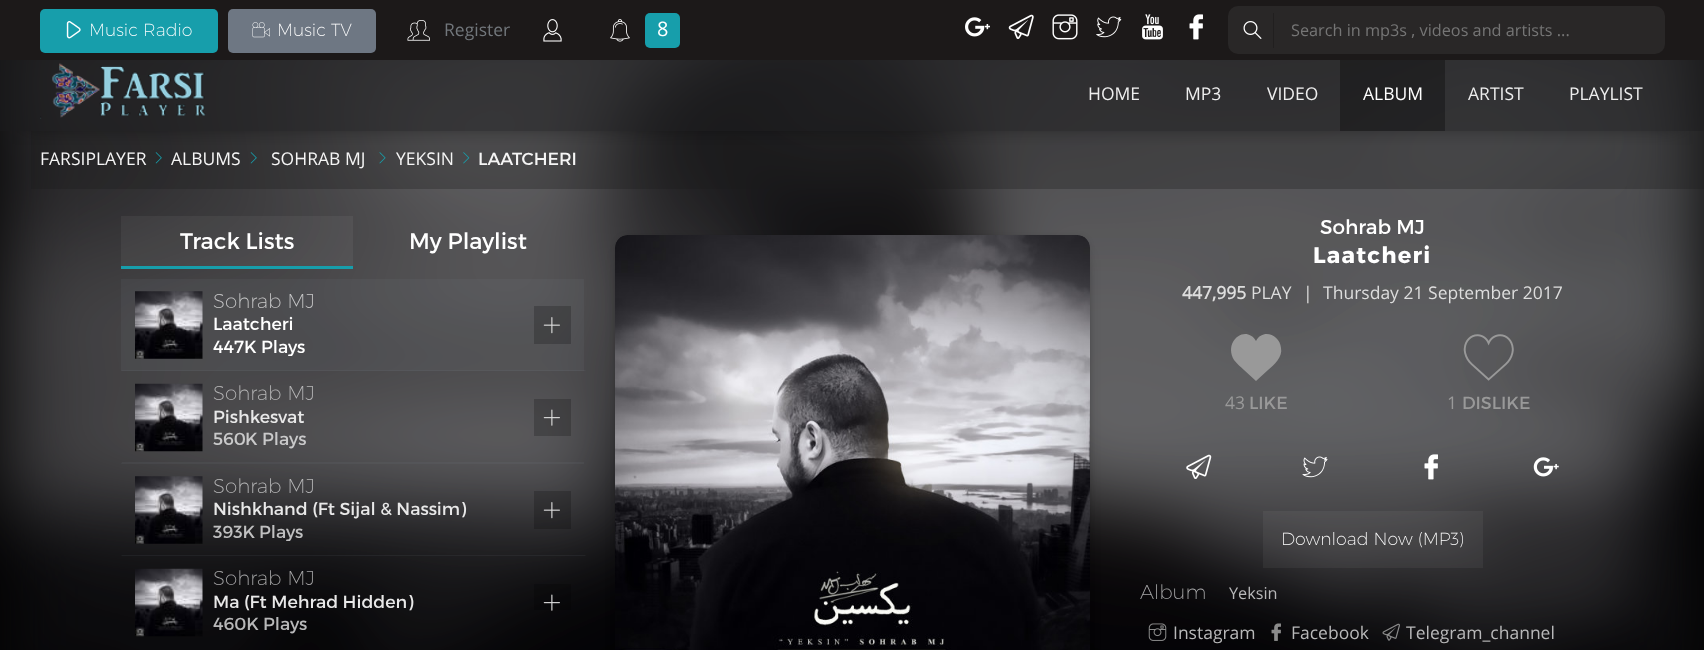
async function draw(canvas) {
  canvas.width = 1704;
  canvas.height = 650;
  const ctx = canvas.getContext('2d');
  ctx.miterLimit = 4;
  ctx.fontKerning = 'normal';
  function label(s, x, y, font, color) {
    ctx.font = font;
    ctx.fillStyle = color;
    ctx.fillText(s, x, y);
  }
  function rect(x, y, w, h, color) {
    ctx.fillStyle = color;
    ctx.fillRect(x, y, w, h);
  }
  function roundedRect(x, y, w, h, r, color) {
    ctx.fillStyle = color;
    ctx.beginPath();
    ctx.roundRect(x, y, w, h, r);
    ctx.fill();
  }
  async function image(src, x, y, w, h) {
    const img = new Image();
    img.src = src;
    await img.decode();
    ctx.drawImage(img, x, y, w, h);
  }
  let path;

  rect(0, 0, 1704, 650, '#000');
  await image('assets/img18.png', 0, 60, 1704, 590);
  rect(31, 131, 1673, 58, '#1b1b1c4d');
  await image('assets/img14.png', 155, 152, 7, 12);
  await image('assets/img15.png', 250, 152, 7, 12);
  await image('assets/img16.png', 379, 152, 7, 12);
  await image('assets/img17.png', 463, 152, 7, 12);
  ctx.save();
  ctx.beginPath();
  ctx.rect(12, 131, 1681, 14);
  ctx.clip();
  ctx.fillStyle = '#000';
  ctx.filter = 'blur(12.5px)';
  ctx.beginPath();
  ctx.rect(25, 94, 1655, 25);
  ctx.fill();
  ctx.filter = 'none';
  ctx.restore();
  rect(0, 0, 1704, 60, '#1c1919');
  roundedRect(40, 9, 178, 44, 5, '#179eab');
  await image('assets/img1.png', 66, 21, 15, 18);
  label('Music Radio', 89, 36, '200 17.5px Montserrat', '#fff');
  roundedRect(228, 9, 148, 44, 5, '#6e7783');
  await image('assets/img2.png', 252, 22, 18, 16);
  label('Music TV', 277, 36, '200 17.5px Montserrat', '#fff');
  await image('assets/img3.png', 407, 20, 23, 21);
  label('Register', 444, 36, '17.5px Open Sans', '#72777c');
  await image('assets/img4.png', 543, 19, 19, 23);
  await image('assets/img5.png', 610, 19, 20, 23);
  roundedRect(645, 13, 35, 35, 5, '#179eab');
  label('8', 657, 36, '20px Open Sans', '#fff');
  await image('assets/img6.png', 965, 17, 25, 20);
  await image('assets/img7.png', 1008, 14, 26, 25);
  await image('assets/img8.png', 1052, 14, 26, 26);
  await image('assets/img9.png', 1096, 16, 26, 22);
  await image('assets/img10.png', 1142, 14, 21, 26);
  await image('assets/img11.png', 1189, 14, 14, 26);
  roundedRect(1228, 6, 437, 48, 10, '#292727');
  rect(1273, 13, 1, 35, '#211f1f');
  await image('assets/img12.png', 1243, 21, 19, 18);
  label('Search in mp3s , videos and artists ...', 1291, 36, '16.25px Open Sans', '#757575');
  rect(0, 60, 1704, 71, '#1b1b1c99');
  await image('assets/img13.png', 40, 63, 166, 56);
  label('HOME', 1088, 100, '17.5px Open Sans', '#eee');
  label('MP3', 1185, 100, '17.5px Open Sans', '#eee');
  label('VIDEO', 1267, 100, '17.5px Open Sans', '#eee');
  rect(1340, 60, 105, 71, '#0000004d');
  label('ALBUM', 1363, 100, '17.5px Open Sans', '#fff');
  label('ARTIST', 1468, 100, '17.5px Open Sans', '#eee');
  label('PLAYLIST', 1569, 100, '17.5px Open Sans', '#eee');
  label('FARSIPLAYER', 40, 165, '17.5px Open Sans', '#f5f5f5');
  label('ALBUMS', 171, 165, '17.5px Open Sans', '#f5f5f5');
  label('SOHRAB MJ', 271, 165, '17.5px Open Sans', '#f5f5f5');
  label('YEKSIN', 396, 165, '17.5px Open Sans', '#f5f5f5');
  label('LAATCHERI', 478, 165, '17.5px Montserrat', '#f5f5f5');
  rect(121, 216, 232, 50, '#ffffff0d');
  rect(121, 266, 232, 3, '#179eab');
  label('Track Lists', 180, 249, '22.5px Montserrat', '#fff');
  label('My Playlist', 409, 249, '22.5px Montserrat', '#fff');
  rect(121, 279, 463, 92, '#7e87961a');
  path = new Path2D('M586 371H121L122 370H585Z');
  ctx.fill(path);
  await image('assets/img19.png', 135, 291, 68, 68);
  label('Sohrab MJ', 213, 308, '200 20px Montserrat', '#c9c9ca');
  label('Laatcheri', 213, 330, '17.5px Montserrat', '#fff');
  label('447K', 213, 353, '17.5px Montserrat', '#fff');
  ctx.save();
  ctx.beginPath();
  ctx.rect(213, 291, 310, 65);
  ctx.clip();
  label('Plays', 261, 353, '17.5px Montserrat', '#fff');
  ctx.restore();
  rect(534, 306, 37, 38, '#00000033');
  await image('assets/img20.png', 543, 317, 17, 17);
  ctx.save();
  ctx.beginPath();
  ctx.rect(121, 279, 463, 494);
  ctx.clip();
  ctx.fillStyle = '#7e87961a';
  path = new Path2D('M586 464H121L122 462H585Z');
  ctx.fill(path);
  ctx.restore();
  await image('assets/img21.png', 135, 383, 68, 69);
  label('Sohrab MJ', 213, 400, '200 20px Montserrat', '#b8b8b9');
  label('Pishkesvat', 213, 423, '17.5px Montserrat', '#e8e8e8');
  label('560', 213, 445, '17.5px Montserrat', '#c9c9ca');
  label('K Plays', 245, 445, '17.5px Montserrat', '#c9c9ca');
  rect(534, 399, 37, 37, '#00000033');
  await image('assets/img22.png', 543, 409, 17, 17);
  ctx.fillStyle = '#7e87961a';
  path = new Path2D('M586 556H121L122 555H585Z');
  ctx.fill(path);
  await image('assets/img23.png', 135, 476, 68, 68);
  label('Sohrab MJ', 213, 493, '200 20px Montserrat', '#b8b8b9');
  label('Nishkhand (Ft Sijal & Nassim)', 213, 515, '17.5px Montserrat', '#e8e8e8');
  label('393K', 213, 538, '17.5px Montserrat', '#c0c0c1');
  ctx.save();
  ctx.beginPath();
  ctx.rect(213, 476, 310, 65);
  ctx.clip();
  label('Plays', 259, 538, '17.5px Montserrat', '#c0c0c1');
  ctx.restore();
  rect(534, 491, 37, 38, '#00000033');
  await image('assets/img24.png', 543, 502, 17, 17);
  await image('assets/img25.png', 135, 568, 68, 69);
  label('Sohrab MJ', 213, 585, '200 20px Montserrat', '#a7a7a8');
  label('Ma (Ft Mehrad Hidden)', 213, 608, '17.5px Montserrat', '#e8e8e8');
  label('460K', 213, 630, '17.5px Montserrat', '#b8b8b9');
  label('Plays', 263, 630, '17.5px Montserrat', '#b8b8b9');
  rect(534, 584, 37, 26, '#00000033');
  await image('assets/img26.png', 543, 594, 17, 17);
  ctx.fillStyle = '#000000cc';
  ctx.filter = 'blur(9.5px)';
  ctx.beginPath();
  ctx.rect(628, 260, 450, 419);
  ctx.fill();
  ctx.filter = 'none';
  ctx.fillStyle = '#00000080';
  ctx.filter = 'blur(5px)';
  ctx.beginPath();
  ctx.roundRect(621, 241, 463, 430, 6);
  ctx.fill();
  ctx.filter = 'none';
  await image('assets/img27.png', 615, 235, 475, 415);
  label('Sohrab MJ', 1320, 234, '20px Montserrat', '#fff');
  ctx.letterSpacing = '1.25px';
  label('Laatcheri', 1313, 263, 'bold 22.5px Montserrat', '#fff');
  ctx.letterSpacing = '0px';
  label('447,995', 1182, 299, 'bold 17.5px Open Sans', '#ddd');
  label('PLAY', 1251, 299, '17.5px Open Sans', '#ddd');
  label('|', 1303, 299, '17.5px Open Sans', '#ddd');
  label('Thursday 21 September 2017', 1323, 299, '17.5px Open Sans', '#ddd');
  ctx.fillStyle = '#999';
  path = new Path2D('M1281 348C1283 357 1274 365 1268 370L1256 381L1244 370C1241 367 1237 364 1234 360C1223 341 1246 324 1256 341C1263 328 1280 335 1281 348Z');
  ctx.fill(path);
  label('43', 1225, 409, '17.5px Open Sans', '#999');
  label('LIKE', 1249, 409, '17.5px Montserrat', '#999');
  await image('assets/img28.png', 1463, 334, 51, 47);
  label('1', 1447, 409, '17.5px Open Sans', '#999');
  label('DISLIKE', 1462, 409, '17.5px Montserrat', '#999');
  await image('assets/img29.png', 1186, 454, 26, 25);
  await image('assets/img30.png', 1302, 456, 26, 22);
  await image('assets/img31.png', 1424, 454, 14, 26);
  await image('assets/img32.png', 1533, 457, 26, 20);
  rect(1263, 511, 220, 57, '#ffffff0d');
  label('Download Now (MP3)', 1281, 545, '200 17.5px Montserrat', '#fff');
  label('Album', 1140, 599, '200 20px Montserrat', '#a7a7a8');
  label('Yeksin', 1229, 599, '16.25px Open Sans', '#b8b8b9');
  await image('assets/img33.png', 1148, 623, 19, 18);
  label('Instagram', 1173, 639, '17.5px Open Sans', '#b8b8b9');
  await image('assets/img34.png', 1271, 623, 10, 18);
  label('Facebook', 1291, 639, '17.5px Open Sans', '#b8b8b9');
  await image('assets/img35.png', 1382, 623, 18, 18);
  label('Telegram_channel', 1406, 639, '17.5px Open Sans', '#b8b8b9');
}

draw(document.querySelector('canvas'));
